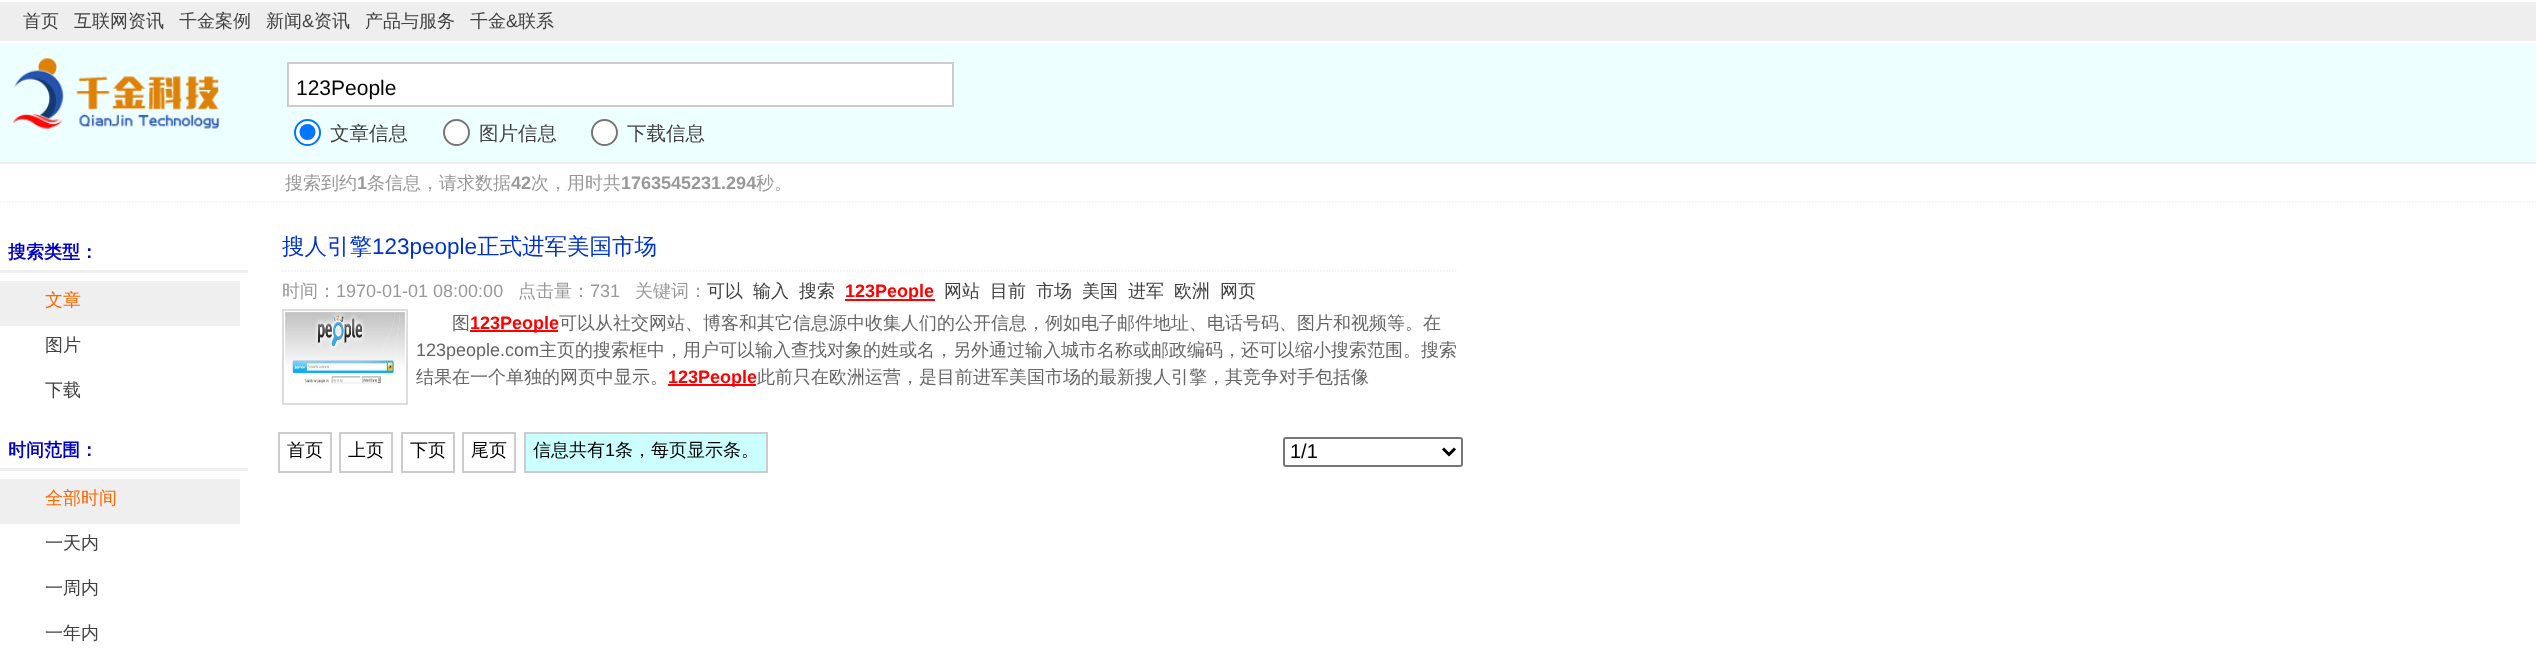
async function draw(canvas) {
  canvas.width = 2536;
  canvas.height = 651;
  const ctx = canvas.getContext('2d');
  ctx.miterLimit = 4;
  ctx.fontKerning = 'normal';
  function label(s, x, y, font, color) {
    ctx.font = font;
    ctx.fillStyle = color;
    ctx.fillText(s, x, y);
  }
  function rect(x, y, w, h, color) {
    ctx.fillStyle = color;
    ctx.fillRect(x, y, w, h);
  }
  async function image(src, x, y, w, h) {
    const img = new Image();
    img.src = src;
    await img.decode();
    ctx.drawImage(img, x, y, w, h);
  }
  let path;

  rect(0, 0, 2536, 651, '#fff');
  rect(0, 2, 2536, 39, '#eee');
  label('首页', 23, 27, '500 18px WenQuanYi Zen Hei', '#414141');
  label('互联网资讯', 74, 27, '500 18px WenQuanYi Zen Hei', '#414141');
  label('千金案例', 179, 27, '500 18px WenQuanYi Zen Hei', '#414141');
  label('新闻', 266, 27, '500 18px WenQuanYi Zen Hei', '#414141');
  label('&', 302, 27, '18px Liberation Sans', '#414141');
  label('资讯', 314, 27, '500 18px WenQuanYi Zen Hei', '#414141');
  label('产品与服务', 365, 27, '500 18px WenQuanYi Zen Hei', '#414141');
  label('千金', 470, 27, '500 18px WenQuanYi Zen Hei', '#414141');
  label('&', 506, 27, '18px Liberation Sans', '#414141');
  label('联系', 518, 27, '500 18px WenQuanYi Zen Hei', '#414141');
  rect(0, 43, 2536, 119, '#eff');
  rect(0, 162, 2536, 2, '#eee');
  await image('assets/img1.png', 13, 58, 207, 72);
  ctx.fillStyle = '#fff';
  ctx.beginPath();
  ctx.rect(288, 63, 665, 43);
  ctx.fill();
  ctx.strokeStyle = '#ccc';
  ctx.lineWidth = 2;
  ctx.stroke();
  label('123People', 296, 95, '21px Liberation Sans', '#000');
  ctx.fillStyle = '#fff';
  ctx.beginPath();
  ctx.arc(307.5, 132.5, 12.5, 0, 2 * Math.PI);
  ctx.fill();
  ctx.strokeStyle = '#0075ff';
  ctx.stroke();
  ctx.fillStyle = '#0075ff';
  ctx.beginPath();
  ctx.arc(307.5, 132, 8, 0, 2 * Math.PI);
  ctx.fill();
  label('文章信息', 330, 140, '500 19.5px WenQuanYi Zen Hei', '#414141');
  ctx.fillStyle = '#fff';
  ctx.beginPath();
  ctx.arc(456.5, 132.5, 12.5, 0, 2 * Math.PI);
  ctx.fill();
  ctx.strokeStyle = '#767676';
  ctx.stroke();
  label('图片信息', 479, 140, '500 19.5px WenQuanYi Zen Hei', '#414141');
  ctx.fillStyle = '#fff';
  ctx.beginPath();
  ctx.arc(604.5, 132.5, 12.5, 0, 2 * Math.PI);
  ctx.fill();
  ctx.stroke();
  label('下载信息', 627, 140, '500 19.5px WenQuanYi Zen Hei', '#414141');
  path = new Path2D('M0 202H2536.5');
  ctx.strokeStyle = '#efefef';
  ctx.lineWidth = 1.5;
  ctx.setLineDash([1.5, 1.5]);
  ctx.stroke(path);
  label('搜索到约', 285, 189, '500 18px WenQuanYi Zen Hei', '#999');
  label('1', 357, 189, 'bold 18px Liberation Sans', '#999');
  label('条信息，请求数据', 367, 189, '500 18px WenQuanYi Zen Hei', '#999');
  label('42', 511, 189, 'bold 18px Liberation Sans', '#999');
  label('次，用时共', 531, 189, '500 18px WenQuanYi Zen Hei', '#999');
  label('1763545231.294', 621, 189, 'bold 18px Liberation Sans', '#999');
  label('秒。', 756, 189, '500 18px WenQuanYi Zen Hei', '#999');
  rect(0, 270, 248, 3, '#efefef');
  label('搜索类型：', 8, 258, 'bold 18px WenQuanYi Zen Hei', '#00c');
  rect(0, 281, 240, 45, '#efefef');
  label('文章', 45, 306, '500 18px WenQuanYi Zen Hei', '#f60');
  label('图片', 45, 351, '500 18px WenQuanYi Zen Hei', '#414141');
  label('下载', 45, 396, '500 18px WenQuanYi Zen Hei', '#414141');
  rect(0, 468, 248, 3, '#efefef');
  label('时间范围：', 8, 456, 'bold 18px WenQuanYi Zen Hei', '#00c');
  rect(0, 479, 240, 45, '#efefef');
  label('全部时间', 45, 504, '500 18px WenQuanYi Zen Hei', '#f60');
  label('一天内', 45, 549, '500 18px WenQuanYi Zen Hei', '#414141');
  label('一周内', 45, 594, '500 18px WenQuanYi Zen Hei', '#414141');
  label('一年内', 45, 639, '500 18px WenQuanYi Zen Hei', '#414141');
  path = new Path2D('M282 271H1458');
  ctx.stroke(path);
  label('搜人引擎', 282, 254, '500 22.5px WenQuanYi Zen Hei', '#03c');
  label('123people', 372, 254, '22.5px Liberation Sans', '#03c');
  label('正式进军美国市场', 477, 254, '500 22.5px WenQuanYi Zen Hei', '#03c');
  label('时间：', 282, 297, '500 18px WenQuanYi Zen Hei', '#999');
  label('1970-01-01 08:00:00', 336, 297, '18px Liberation Sans', '#999');
  label('点击量：', 518, 297, '500 18px WenQuanYi Zen Hei', '#999');
  label('731', 590, 297, '18px Liberation Sans', '#999');
  label('关键词：', 635, 297, '500 18px WenQuanYi Zen Hei', '#999');
  label('可以', 707, 297, '500 18px WenQuanYi Zen Hei', '#414141');
  label('输入', 753, 297, '500 18px WenQuanYi Zen Hei', '#414141');
  label('搜索', 799, 297, '500 18px WenQuanYi Zen Hei', '#414141');
  rect(845, 299, 90, 2, '#f00');
  label('123People', 845, 297, 'bold 18px Liberation Sans', '#f00');
  label('网站', 944, 297, '500 18px WenQuanYi Zen Hei', '#414141');
  label('目前', 990, 297, '500 18px WenQuanYi Zen Hei', '#414141');
  label('市场', 1036, 297, '500 18px WenQuanYi Zen Hei', '#414141');
  label('美国', 1082, 297, '500 18px WenQuanYi Zen Hei', '#414141');
  label('进军', 1128, 297, '500 18px WenQuanYi Zen Hei', '#414141');
  label('欧洲', 1174, 297, '500 18px WenQuanYi Zen Hei', '#414141');
  label('网页', 1220, 297, '500 18px WenQuanYi Zen Hei', '#414141');
  ctx.strokeStyle = '#ddd';
  ctx.lineWidth = 2;
  ctx.setLineDash([]);
  ctx.strokeRect(283, 310, 124, 94);
  await image('assets/img2.png', 285, 312, 120, 73);
  label('图', 452, 329, '500 18px WenQuanYi Zen Hei', '#666');
  rect(470, 330, 88, 2, '#f00');
  label('123People', 470, 329, 'bold 18px Liberation Sans', '#f00');
  label('可以从社交网站、博客和其它信息源中收集人们的公开信息，例如电子邮件地址、电话号码、图片和视频等。在', 559, 329, '500 18px WenQuanYi Zen Hei', '#666');
  label('123people.com', 416, 356, '18px Liberation Sans', '#666');
  label('主页的搜索框中，用户可以输入查找对象的姓或名，另外通过输入城市名称或邮政编码，还可以缩小搜索范围。搜索', 539, 356, '500 18px WenQuanYi Zen Hei', '#666');
  label('结果在一个单独的网页中显示。', 416, 383, '500 18px WenQuanYi Zen Hei', '#666');
  rect(668, 384, 88, 2, '#f00');
  label('123People', 668, 383, 'bold 18px Liberation Sans', '#f00');
  label('此前只在欧洲运营，是目前进军美国市场的最新搜人引擎，其竞争对手包括像', 757, 383, '500 18px WenQuanYi Zen Hei', '#666');
  ctx.strokeStyle = '#ccc';
  ctx.strokeRect(279, 433, 52, 39);
  label('首页', 287, 456, '500 18px WenQuanYi Zen Hei', '#000');
  ctx.strokeRect(340, 433, 52, 39);
  label('上页', 348, 456, '500 18px WenQuanYi Zen Hei', '#000');
  ctx.strokeRect(402, 433, 52, 39);
  label('下页', 410, 456, '500 18px WenQuanYi Zen Hei', '#000');
  ctx.strokeRect(463, 433, 52, 39);
  label('尾页', 471, 456, '500 18px WenQuanYi Zen Hei', '#000');
  ctx.fillStyle = '#cff';
  ctx.beginPath();
  ctx.rect(525, 433, 242, 39);
  ctx.fill();
  ctx.stroke();
  label('信息共有', 533, 456, '500 18px WenQuanYi Zen Hei', '#000');
  label('1', 605, 456, '18px Liberation Sans', '#000');
  label('条，每页显示条。', 615, 456, '500 18px WenQuanYi Zen Hei', '#000');
  ctx.beginPath();
  ctx.roundRect(1284, 438, 178, 28, 2);
  ctx.strokeStyle = '#767676';
  ctx.stroke();
  path = new Path2D('M1443 448.5L1449 454.5L1455 448.5');
  ctx.strokeStyle = '#000';
  ctx.lineWidth = 3;
  ctx.stroke(path);
  label('1/1', 1290, 458, '20px Liberation Sans', '#000');
}

draw(document.querySelector('canvas'));
